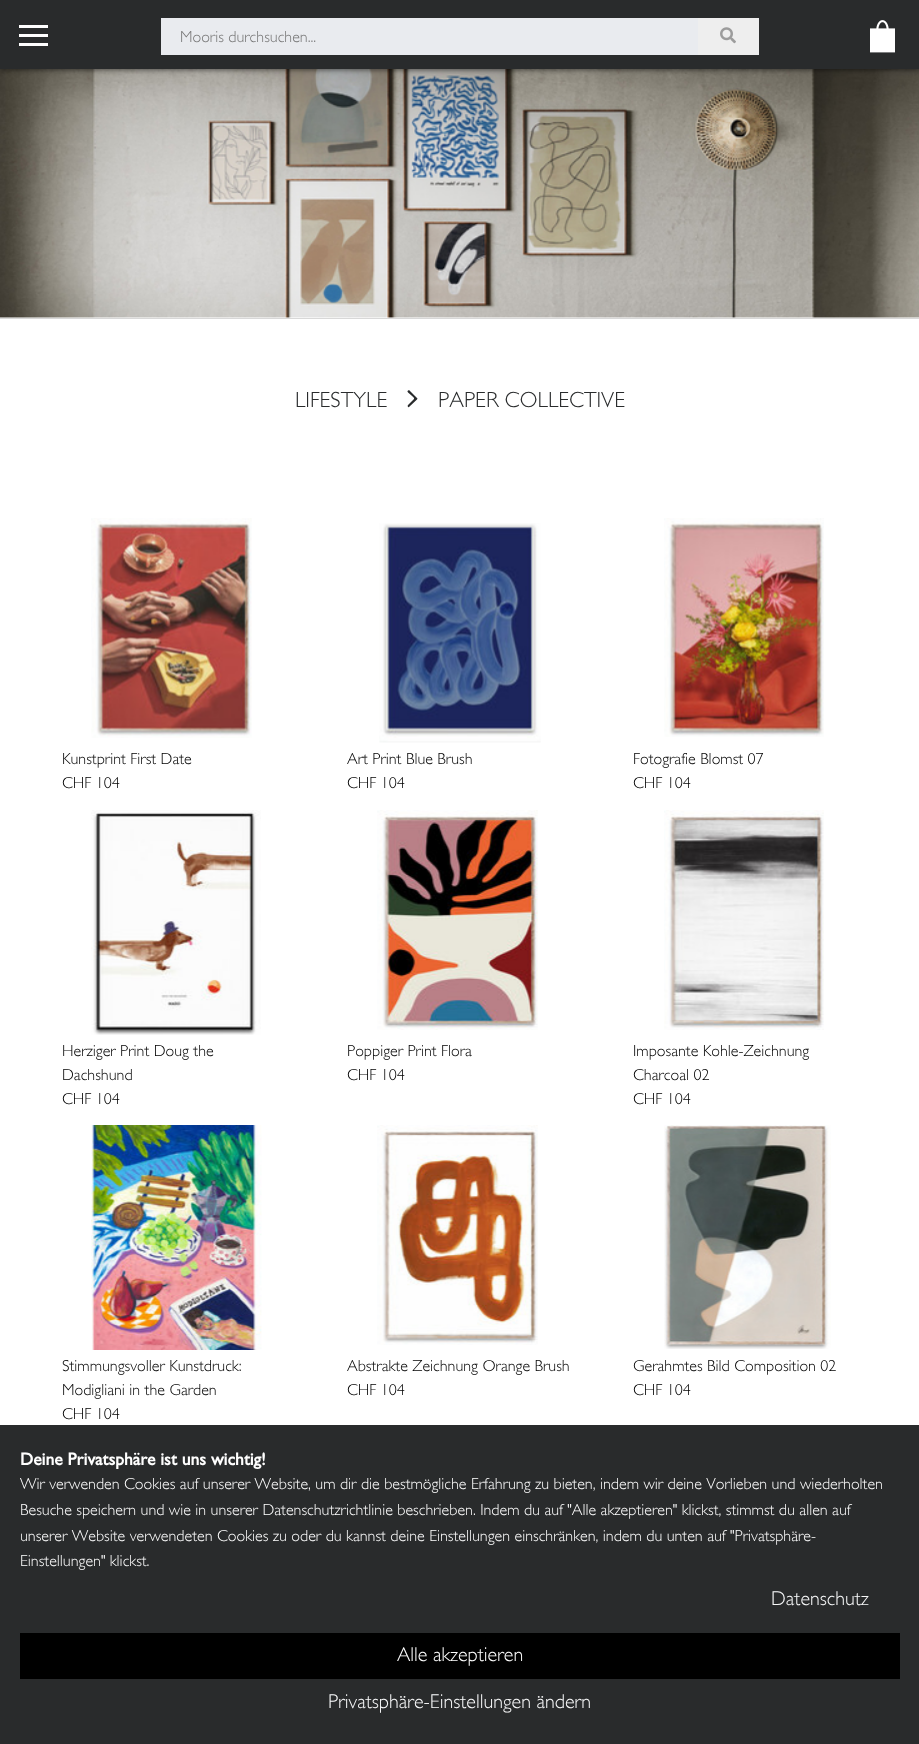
async function draw(canvas) {
  canvas.width = 919;
  canvas.height = 1744;
  const ctx = canvas.getContext('2d');
  ctx.miterLimit = 4;
  ctx.fontKerning = 'normal';
  function label(s, x, y, font, color) {
    ctx.font = font;
    ctx.fillStyle = color;
    ctx.fillText(s, x, y);
  }
  function rect(x, y, w, h, color) {
    ctx.fillStyle = color;
    ctx.fillRect(x, y, w, h);
  }
  async function image(src, x, y, w, h) {
    const img = new Image();
    img.src = src;
    await img.decode();
    ctx.drawImage(img, x, y, w, h);
  }
  let path;

  rect(0, 0, 919, 1744, '#fff');
  await image('assets/img3.png', 0, 69, 919, 249);
  ctx.fillStyle = '#00000080';
  ctx.filter = 'blur(2.5px)';
  ctx.beginPath();
  ctx.rect(0, 1, 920, 69);
  ctx.fill();
  ctx.filter = 'none';
  rect(0, 0, 919, 69, '#292b2c');
  rect(19, 34, 29, 3, '#fff');
  rect(19, 25, 29, 3, '#fff');
  rect(19, 43, 29, 3, '#fff');
  rect(161, 18, 598, 37, '#e9ebef');
  label('Mooris durchsuchen...', 180, 42, '300 16px Gill Sans', '#757575');
  ctx.fillStyle = '#eee';
  ctx.beginPath();
  ctx.roundRect(698, 18, 61, 37, [0, 2.5, 2.5, 0]);
  ctx.fill();
  await image('assets/img1.png', 720, 27, 16, 17);
  await image('assets/img2.png', 870, 20, 25, 33);
  rect(0, 318, 919, 1, '#d8d8d8');
  label('LIFESTYLE', 295, 407, '300 22px Gill Sans', '#292b2c');
  path = new Path2D('M407.5 391C406.5 392.5 415.5 397.5 414 399L408 405C407 406 408.5 408 409 407L417 399.5L417.5 398.5L409 390Z');
  ctx.fill(path, 'evenodd');
  label('PAPER COLLECTIVE', 438, 407, '300 22px Gill Sans', '#292b2c');
  await image('assets/img4.png', 91, 518, 161, 220);
  label('Kunstprint First Date', 62, 764, '300 16px Gill Sans', '#000');
  label('CHF 104', 62, 788, '300 16px Gill Sans', '#000');
  await image('assets/img5.png', 379, 523, 162, 220);
  label('Art Print Blue Brush', 347, 764, '300 16px Gill Sans', '#000');
  label('CHF 104', 347, 788, '300 16px Gill Sans', '#000');
  await image('assets/img6.png', 664, 518, 160, 219);
  label('Fotografie Blomst 07', 633, 764, '300 16px Gill Sans', '#000');
  label('CHF 104', 633, 788, '300 16px Gill Sans', '#000');
  await image('assets/img7.png', 91, 810, 170, 225);
  label('Herziger Print Doug the', 62, 1056, '300 16px Gill Sans', '#000');
  label('Dachshund', 62, 1080, '300 16px Gill Sans', '#000');
  label('CHF 104', 62, 1104, '300 16px Gill Sans', '#000');
  await image('assets/img8.png', 377, 810, 161, 220);
  label('Poppiger Print Flora', 347, 1056, '300 16px Gill Sans', '#000');
  label('CHF 104', 347, 1080, '300 16px Gill Sans', '#000');
  await image('assets/img9.png', 664, 810, 160, 220);
  label('Imposante Kohle-Zeichnung', 633, 1056, '300 16px Gill Sans', '#000');
  label('Charcoal 02', 633, 1080, '300 16px Gill Sans', '#000');
  label('CHF 104', 633, 1104, '300 16px Gill Sans', '#000');
  await image('assets/img10.png', 91, 1125, 171, 225);
  label('Stimmungsvoller Kunstdruck:', 62, 1371, '300 16px Gill Sans', '#000');
  label('Modigliani in the Garden', 62, 1395, '300 16px Gill Sans', '#000');
  label('CHF 104', 62, 1419, '300 16px Gill Sans', '#000');
  await image('assets/img11.png', 377, 1125, 161, 220);
  label('Abstrakte Zeichnung Orange Brush', 347, 1371, '300 16px Gill Sans', '#000');
  label('CHF 104', 347, 1395, '300 16px Gill Sans', '#000');
  await image('assets/img12.png', 664, 1125, 167, 224);
  label('Gerahmtes Bild Composition 02', 633, 1371, '300 16px Gill Sans', '#000');
  label('CHF 104', 633, 1395, '300 16px Gill Sans', '#000');
  rect(0, 1425, 919, 319, '#292b2c');
  label('Deine Privatsphäre ist uns wichtig!', 20, 1465, 'bold 17.6px Gill Sans', '#fff');
  label('Wir verwenden Cookies auf unserer Website, um dir die bestmögliche Erfahrung zu bieten, indem wir deine Vorlieben und wiederholten', 20, 1489, '300 16px Gill Sans', '#fff');
  label('Besuche speichern und wie in unserer Datenschutzrichtlinie beschrieben. Indem du auf "Alle akzeptieren" klickst, stimmst du allen auf', 20, 1515, '300 16px Gill Sans', '#fff');
  label('unserer Website verwendeten Cookies zu oder du kannst deine Einstellungen einschränken, indem du unten auf "Privatsphäre-', 20, 1541, '300 16px Gill Sans', '#fff');
  label('Einstellungen" klickst.', 20, 1566, '300 16px Gill Sans', '#fff');
  label('Datenschutz', 771, 1605, '300 20px Gill Sans', '#f8f9fa');
  rect(20, 1633, 880, 46, '#000');
  label('Alle akzeptieren', 397, 1661, '300 20px Gill Sans', '#fff');
  label('Privatsphäre-Einstellungen ändern', 328, 1708, '300 20px Gill Sans', '#f8f9fa');
}

draw(document.querySelector('canvas'));
